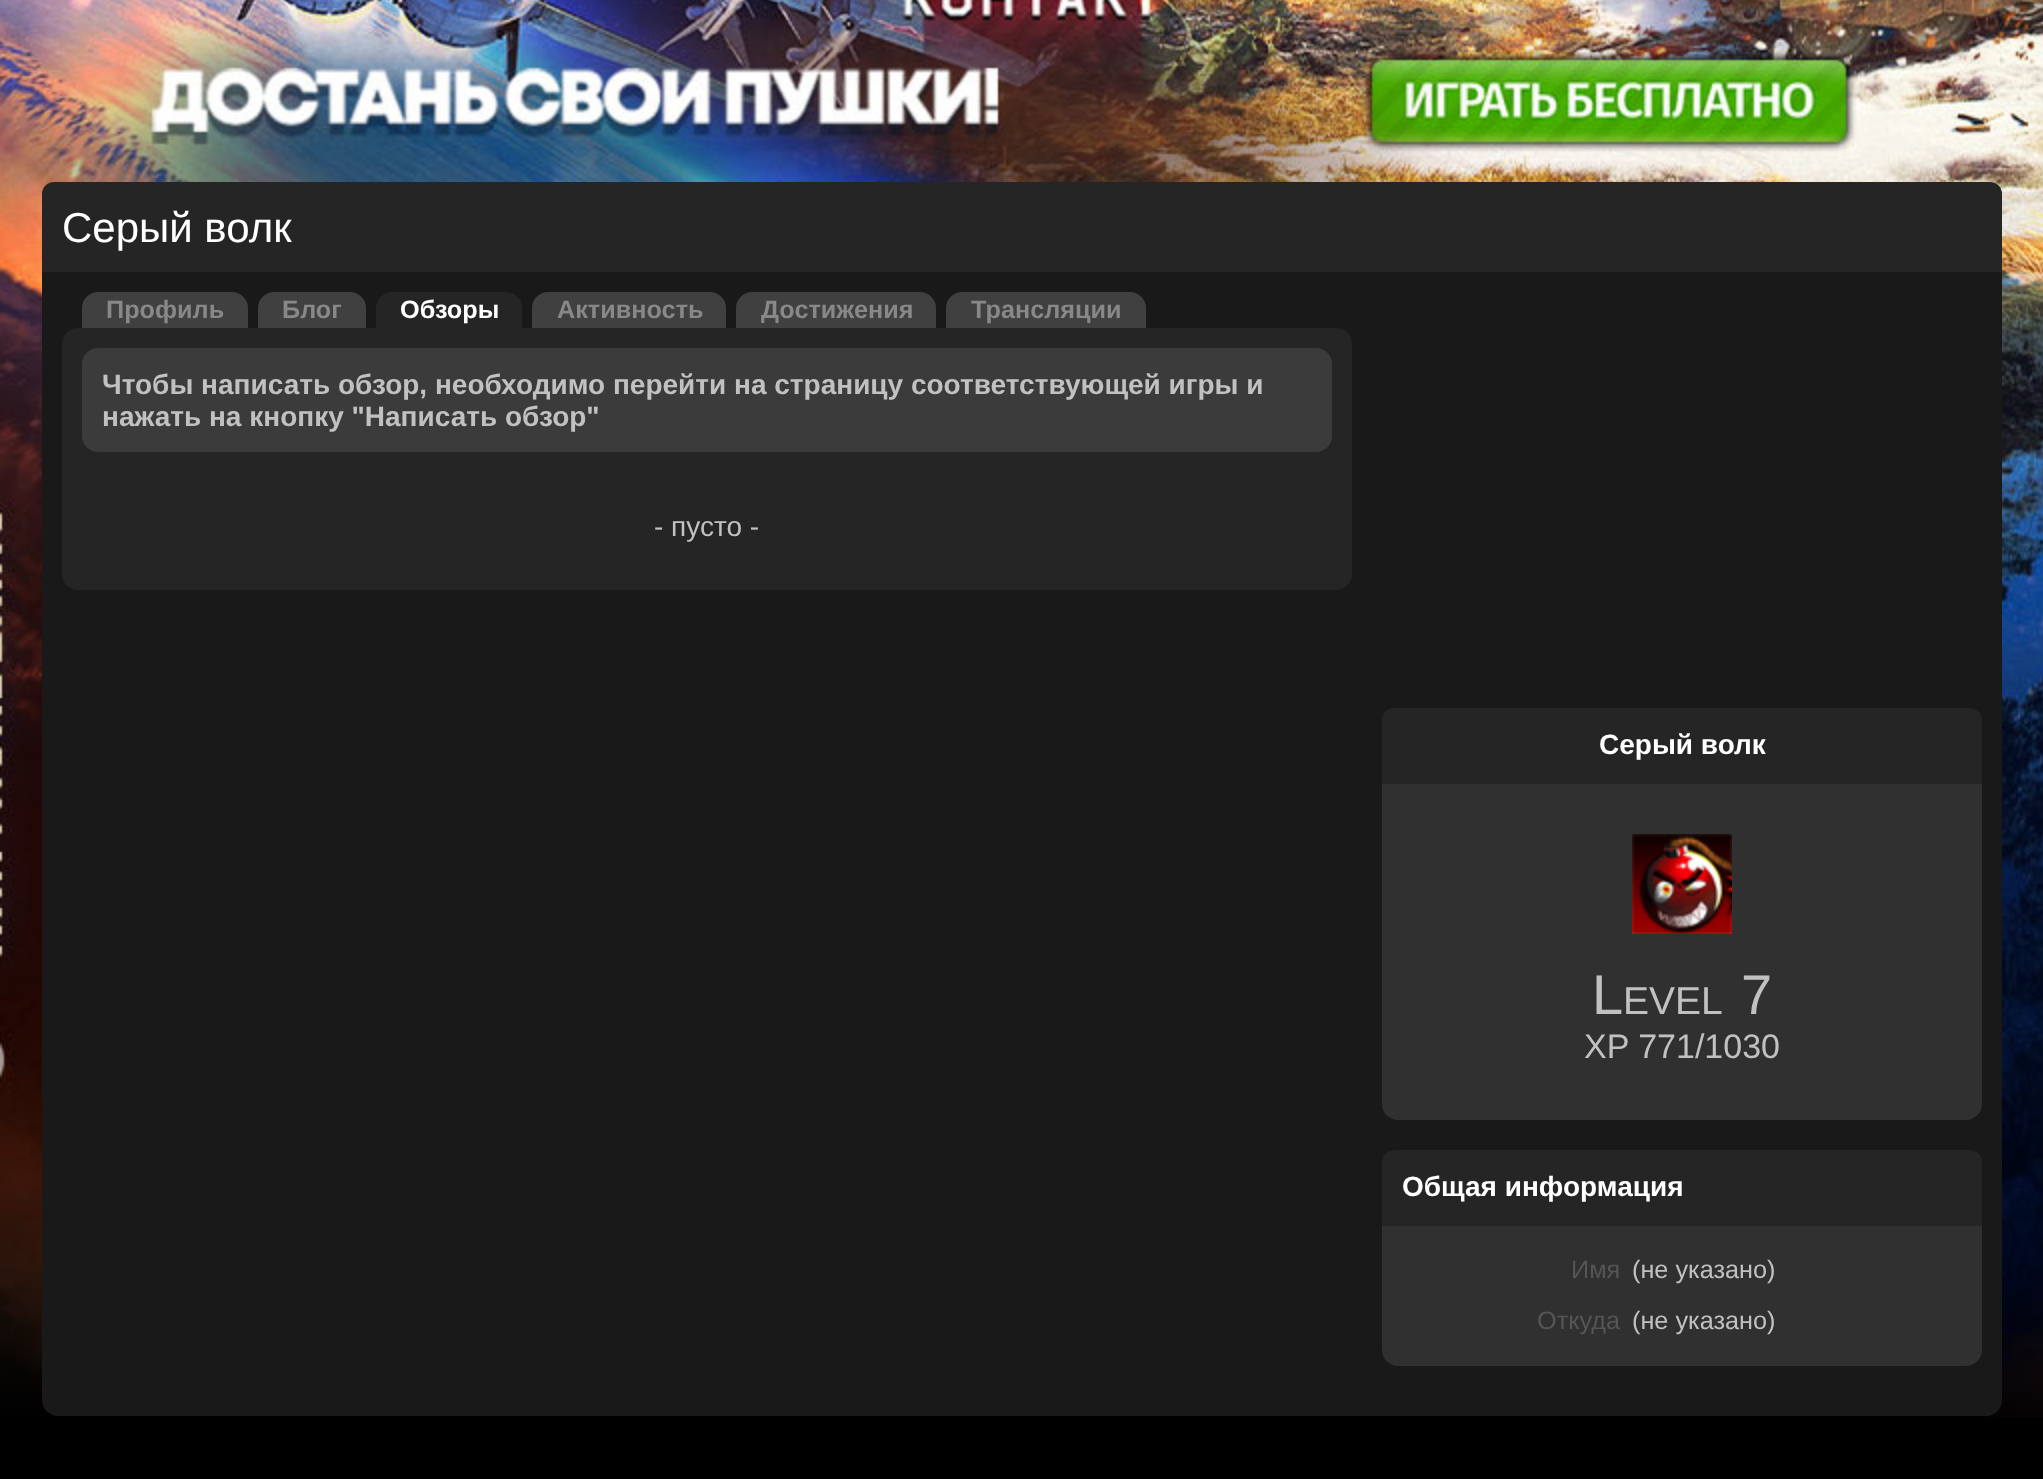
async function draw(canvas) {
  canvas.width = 2043;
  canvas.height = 1479;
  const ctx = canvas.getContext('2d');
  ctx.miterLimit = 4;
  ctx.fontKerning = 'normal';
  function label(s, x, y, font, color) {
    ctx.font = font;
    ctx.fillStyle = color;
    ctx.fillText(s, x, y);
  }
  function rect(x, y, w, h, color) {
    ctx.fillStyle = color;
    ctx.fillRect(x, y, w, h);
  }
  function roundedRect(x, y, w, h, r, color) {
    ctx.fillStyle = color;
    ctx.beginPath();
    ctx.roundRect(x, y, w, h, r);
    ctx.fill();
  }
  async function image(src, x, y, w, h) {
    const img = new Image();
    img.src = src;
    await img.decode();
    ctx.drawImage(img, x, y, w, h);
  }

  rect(0, 0, 2043, 1479, '#000');
  await image('assets/img1.png', 0, 0, 2043, 1417);
  roundedRect(42, 182, 1960, 1234, 16, '#191919');
  ctx.fillStyle = '#252525';
  ctx.beginPath();
  ctx.roundRect(42, 182, 1960, 90, [12, 12, 0, 0]);
  ctx.fill();
  label('Серый волк', 62, 242, '42px Liberation Sans', '#fff');
  ctx.fillStyle = '#404040';
  ctx.beginPath();
  ctx.roundRect(82, 292, 166, 36, [16, 16, 0, 0]);
  ctx.fill();
  label('Профиль', 106, 318, 'bold 25.25px Liberation Sans', '#888');
  ctx.fillStyle = '#404040';
  ctx.beginPath();
  ctx.roundRect(258, 292, 108, 36, [16, 16, 0, 0]);
  ctx.fill();
  label('Блог', 282, 318, 'bold 25.25px Liberation Sans', '#888');
  ctx.fillStyle = '#252525';
  ctx.beginPath();
  ctx.roundRect(376, 292, 146, 36, [16, 16, 0, 0]);
  ctx.fill();
  label('Обзоры', 400, 318, 'bold 25.25px Liberation Sans', '#fff');
  ctx.fillStyle = '#404040';
  ctx.beginPath();
  ctx.roundRect(532, 292, 194, 36, [16, 16, 0, 0]);
  ctx.fill();
  label('Активность', 557, 318, 'bold 25.25px Liberation Sans', '#888');
  ctx.fillStyle = '#404040';
  ctx.beginPath();
  ctx.roundRect(736, 292, 200, 36, [16, 16, 0, 0]);
  ctx.fill();
  label('Достижения', 761, 318, 'bold 25.25px Liberation Sans', '#888');
  ctx.fillStyle = '#404040';
  ctx.beginPath();
  ctx.roundRect(946, 292, 200, 36, [16, 16, 0, 0]);
  ctx.fill();
  label('Трансляции', 971, 318, 'bold 25.25px Liberation Sans', '#888');
  roundedRect(62, 328, 1290, 262, 16, '#252525');
  roundedRect(82, 348, 1250, 104, 16, '#3b3b3b');
  label('Чтобы написать обзор, необходимо перейти на страницу соответствующей игры и', 102, 394, 'bold 28px Liberation Sans', '#c1c1c1');
  label('нажать на кнопку "Написать обзор"', 102, 426, 'bold 28px Liberation Sans', '#c1c1c1');
  label('- пусто -', 654, 536, '28px Liberation Sans', '#c1c1c1');
  roundedRect(1382, 708, 600, 412, 16, '#303030');
  ctx.fillStyle = '#252525';
  ctx.beginPath();
  ctx.roundRect(1382, 708, 600, 76, [12, 12, 0, 0]);
  ctx.fill();
  label('Серый волк', 1599, 754, 'bold 28px Liberation Sans', '#fff');
  await image('assets/img2.png', 1632, 834, 100, 100);
  label('L', 1592, 1014, '56px Liberation Sans', '#c1c1c1');
  label('EVEL', 1623, 1014, '39px Liberation Sans', '#c1c1c1');
  label('7', 1741, 1014, '56px Liberation Sans', '#c1c1c1');
  label('XP 771/1030', 1584, 1058, '34px Liberation Sans', '#c1c1c1');
  roundedRect(1382, 1150, 600, 216, 16, '#303030');
  ctx.fillStyle = '#252525';
  ctx.beginPath();
  ctx.roundRect(1382, 1150, 600, 76, [12, 12, 0, 0]);
  ctx.fill();
  label('Общая информация', 1402, 1196, 'bold 28px Liberation Sans', '#fff');
  label('Имя', 1571, 1278, '25.25px Liberation Sans', '#555');
  label('(не указано)', 1632, 1278, '25.25px Liberation Sans', '#c1c1c1');
  label('Откуда', 1537, 1329, '25.25px Liberation Sans', '#555');
  label('(не указано)', 1632, 1329, '25.25px Liberation Sans', '#c1c1c1');
}

draw(document.querySelector('canvas'));
